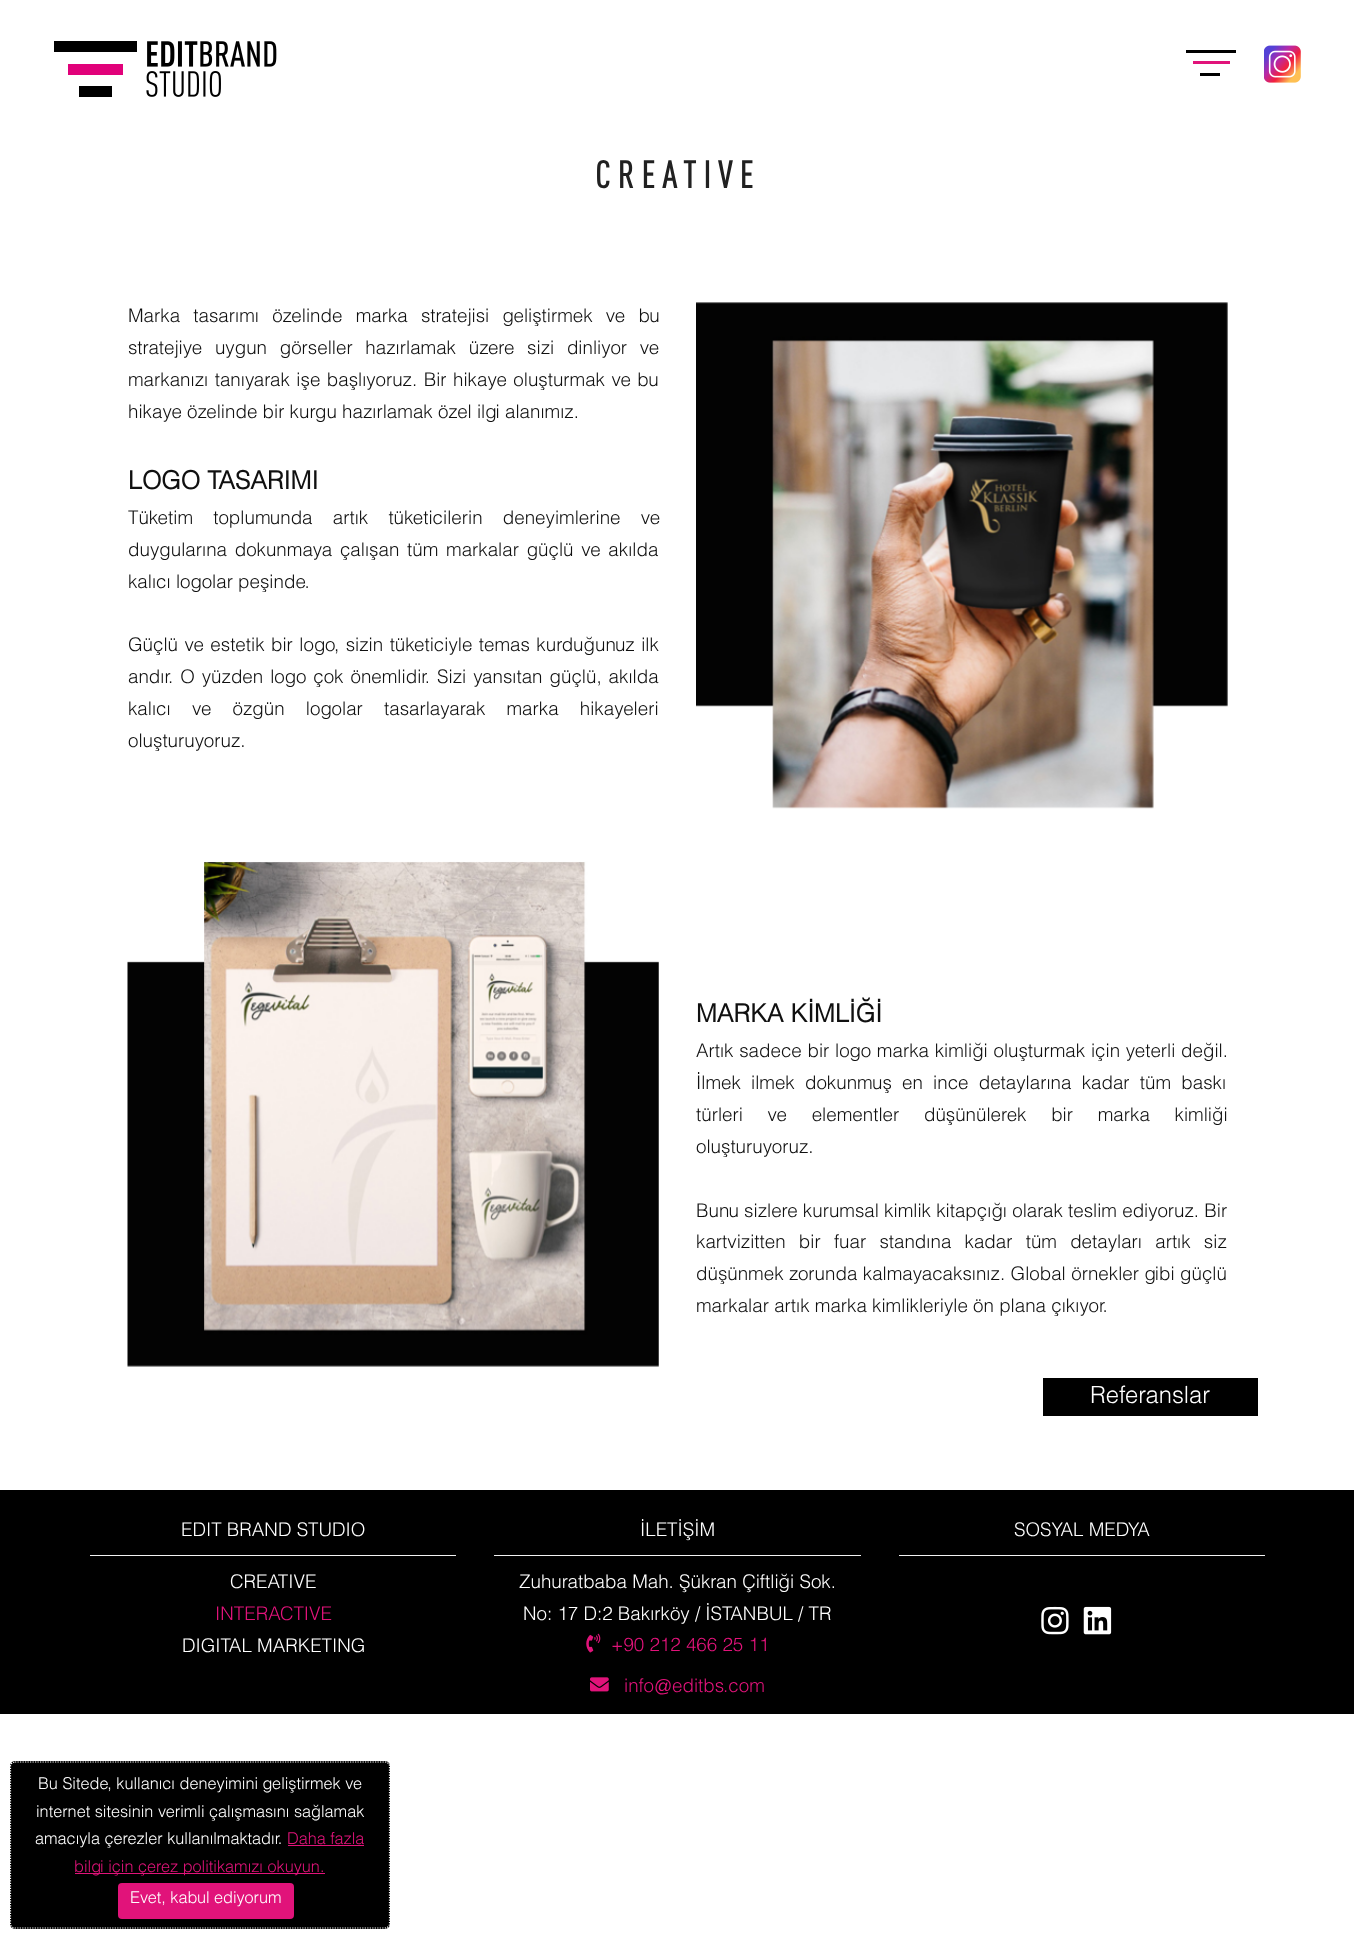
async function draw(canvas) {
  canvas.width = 1354;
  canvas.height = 1938;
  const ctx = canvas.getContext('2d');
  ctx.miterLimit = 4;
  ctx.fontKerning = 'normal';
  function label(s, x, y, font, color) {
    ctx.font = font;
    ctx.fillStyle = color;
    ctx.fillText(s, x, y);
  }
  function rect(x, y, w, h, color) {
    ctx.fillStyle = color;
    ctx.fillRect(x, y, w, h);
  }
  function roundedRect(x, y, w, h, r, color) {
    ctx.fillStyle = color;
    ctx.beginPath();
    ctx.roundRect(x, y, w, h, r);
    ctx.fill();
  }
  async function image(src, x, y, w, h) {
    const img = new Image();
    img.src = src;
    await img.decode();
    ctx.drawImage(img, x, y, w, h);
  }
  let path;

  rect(0, 0, 1354, 1938, '#fff');
  await image('assets/img1.png', 54, 41, 223, 56);
  rect(1186, 50, 50, 3, '#000');
  rect(1193, 61, 37, 3, '#e1137a');
  rect(1200, 73, 20, 3, '#000');
  await image('assets/img2.png', 1264, 45, 37, 38);
  ctx.letterSpacing = '7.5px';
  label('CREATIVE', 595, 188, 'bold 37.5px DIN', '#212121');
  ctx.letterSpacing = '0px';
  ctx.wordSpacing = '8px';
  label('Marka tasarımı özelinde marka stratejisi geliştirmek ve bu', 128, 322, '300 18.75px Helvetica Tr', '#101010');
  ctx.wordSpacing = '7.5px';
  label('stratejiye uygun görseller hazırlamak üzere sizi dinliyor ve', 128, 354, '300 18.75px Helvetica Tr', '#101010');
  ctx.wordSpacing = '1.25px';
  label('markanızı tanıyarak işe başlıyoruz. Bir hikaye oluşturmak ve bu', 128, 386, '300 18.75px Helvetica Tr', '#101010');
  ctx.wordSpacing = '0px';
  label('hikaye özelinde bir kurgu hazırlamak özel ilgi alanımız.', 128, 418, '300 18.75px Helvetica Tr', '#101010');
  label('LOGO TASARIMI', 128, 489, 'bold 25px Helvetica Tr', '#101010');
  ctx.wordSpacing = '15px';
  label('Tüketim toplumunda artık tüketicilerin deneyimlerine ve', 128, 524, '300 18.75px Helvetica Tr', '#101010');
  ctx.wordSpacing = '2.5px';
  label('duygularına dokunmaya çalışan tüm markalar güçlü ve akılda', 128, 556, '300 18.75px Helvetica Tr', '#101010');
  ctx.wordSpacing = '0px';
  label('kalıcı logolar peşinde.', 128, 588, '300 18.75px Helvetica Tr', '#101010');
  ctx.wordSpacing = '1.25px';
  label('Güçlü ve estetik bir logo, sizin tüketiciyle temas kurduğunuz ilk', 128, 651, '300 18.75px Helvetica Tr', '#101010');
  ctx.wordSpacing = '1.75px';
  label('andır. O yüzden logo çok önemlidir. Sizi yansıtan güçlü, akılda', 128, 683, '300 18.75px Helvetica Tr', '#101010');
  ctx.wordSpacing = '16px';
  label('kalıcı ve özgün logolar tasarlayarak marka hikayeleri', 128, 715, '300 18.75px Helvetica Tr', '#101010');
  ctx.wordSpacing = '0px';
  label('oluşturuyoruz.', 128, 747, '300 18.75px Helvetica Tr', '#101010');
  await image('assets/img3.png', 696, 302, 532, 507);
  await image('assets/img4.png', 127, 861, 532, 506);
  label('MARKA KİMLİĞİ', 696, 1022, 'bold 25px Helvetica Tr', '#101010');
  ctx.wordSpacing = '0.5px';
  label('Artık sadece bir logo marka kimliği oluşturmak için yeterli değil.', 696, 1057, '300 18.75px Helvetica Tr', '#101010');
  ctx.wordSpacing = '5px';
  label('İlmek ilmek dokunmuş en ince detaylarına kadar tüm baskı', 696, 1089, '300 18.75px Helvetica Tr', '#101010');
  ctx.wordSpacing = '19.5px';
  label('türleri ve elementler düşünülerek bir marka kimliği', 696, 1121, '300 18.75px Helvetica Tr', '#101010');
  ctx.wordSpacing = '0px';
  label('oluşturuyoruz.', 696, 1153, '300 18.75px Helvetica Tr', '#101010');
  label('Bunu sizlere kurumsal kimlik kitapçığı olarak teslim ediyoruz. Bir', 696, 1217, '300 18.75px Helvetica Tr', '#101010');
  ctx.wordSpacing = '8px';
  label('kartvizitten bir fuar standına kadar tüm detayları artık siz', 696, 1248, '300 18.75px Helvetica Tr', '#101010');
  ctx.wordSpacing = '0.25px';
  label('düşünmek zorunda kalmayacaksınız. Global örnekler gibi güçlü', 696, 1280, '300 18.75px Helvetica Tr', '#101010');
  ctx.wordSpacing = '0px';
  label('markalar artık marka kimlikleriyle ön plana çıkıyor.', 696, 1312, '300 18.75px Helvetica Tr', '#101010');
  rect(1043, 1378, 215, 38, '#000');
  label('Referanslar', 1090, 1403, '300 23.75px Helvetica Tr', '#fff');
  rect(0, 1490, 1354, 224, '#000');
  rect(90, 1555, 366, 1, '#f2f2f2');
  label('EDIT BRAND STUDIO', 181, 1536, '300 18.75px Helvetica Tr', '#fff');
  label('CREATIVE', 230, 1588, '300 18.75px Helvetica Tr', '#fff');
  label('INTERACTIVE', 215, 1620, '300 18.75px Helvetica Tr', '#e1137a');
  label('DIGITAL MARKETING', 182, 1652, '300 18.75px Helvetica Tr', '#fff');
  rect(494, 1555, 367, 1, '#f2f2f2');
  label('İLETİŞİM', 640, 1536, '300 18.75px Helvetica Tr', '#fff');
  label('Zuhuratbaba Mah. Şükran Çiftliği Sok.', 519, 1588, '300 18.75px Helvetica Tr', '#fff');
  label('No: 17 D:2 Bakırköy / İSTANBUL / TR', 523, 1620, '300 18.75px Helvetica Tr', '#fff');
  await image('assets/img5.png', 586, 1633, 15, 20);
  label('+90 212 466 25 11', 611, 1651, '300 18.75px Helvetica Tr', '#e1137a');
  await image('assets/img6.png', 590, 1677, 19, 15);
  label('info', 624, 1692, '300 18.75px Helvetica Tr', '#e1137a');
  label('@', 654, 1692, '18px Liberation Sans', '#e1137a');
  label('editbs.com', 672, 1692, '300 18.75px Helvetica Tr', '#e1137a');
  rect(899, 1555, 366, 1, '#f2f2f2');
  label('SOSYAL MEDYA', 1014, 1536, '300 18.75px Helvetica Tr', '#fff');
  await image('assets/img7.png', 1041, 1606, 28, 29);
  await image('assets/img8.png', 1083, 1606, 29, 29);
  roundedRect(10, 1761, 380, 168, 5, '#000');
  path = new Path2D('M15 1762H385C387.5 1762 389.5 1764 389.5 1766V1924C389.5 1926 387.5 1928 385 1928H15C12.5 1928 10.5 1926 10.5 1924V1766C10.5 1764 12.5 1762 15 1762Z');
  ctx.strokeStyle = '#fff';
  ctx.lineWidth = 1.2;
  ctx.setLineDash([1.25, 1.25]);
  ctx.stroke(path);
  label('Bu Sitede, kullanıcı deneyimini geliştirmek ve', 38, 1789, '300 16.25px Helvetica Tr', '#fff');
  label('internet sitesinin verimli çalışmasını sağlamak', 36, 1817, '300 16.25px Helvetica Tr', '#fff');
  label('amacıyla çerezler kullanılmaktadır.', 35, 1844, '300 16.25px Helvetica Tr', '#fff');
  label('Daha fazla', 287, 1844, '300 16.25px Helvetica Tr', '#e1137a');
  rect(288, 1845, 76, 1, '#e1137a');
  rect(75, 1873, 250, 1, '#e1137a');
  label('bilgi için çerez politikamızı okuyun.', 74, 1872, '300 16.25px Helvetica Tr', '#e1137a');
  roundedRect(118, 1883, 176, 36, 4, '#e1137a');
  label('Evet, kabul ediyorum', 130, 1903, '300 16.25px Helvetica Tr', '#fff');
}

draw(document.querySelector('canvas'));
